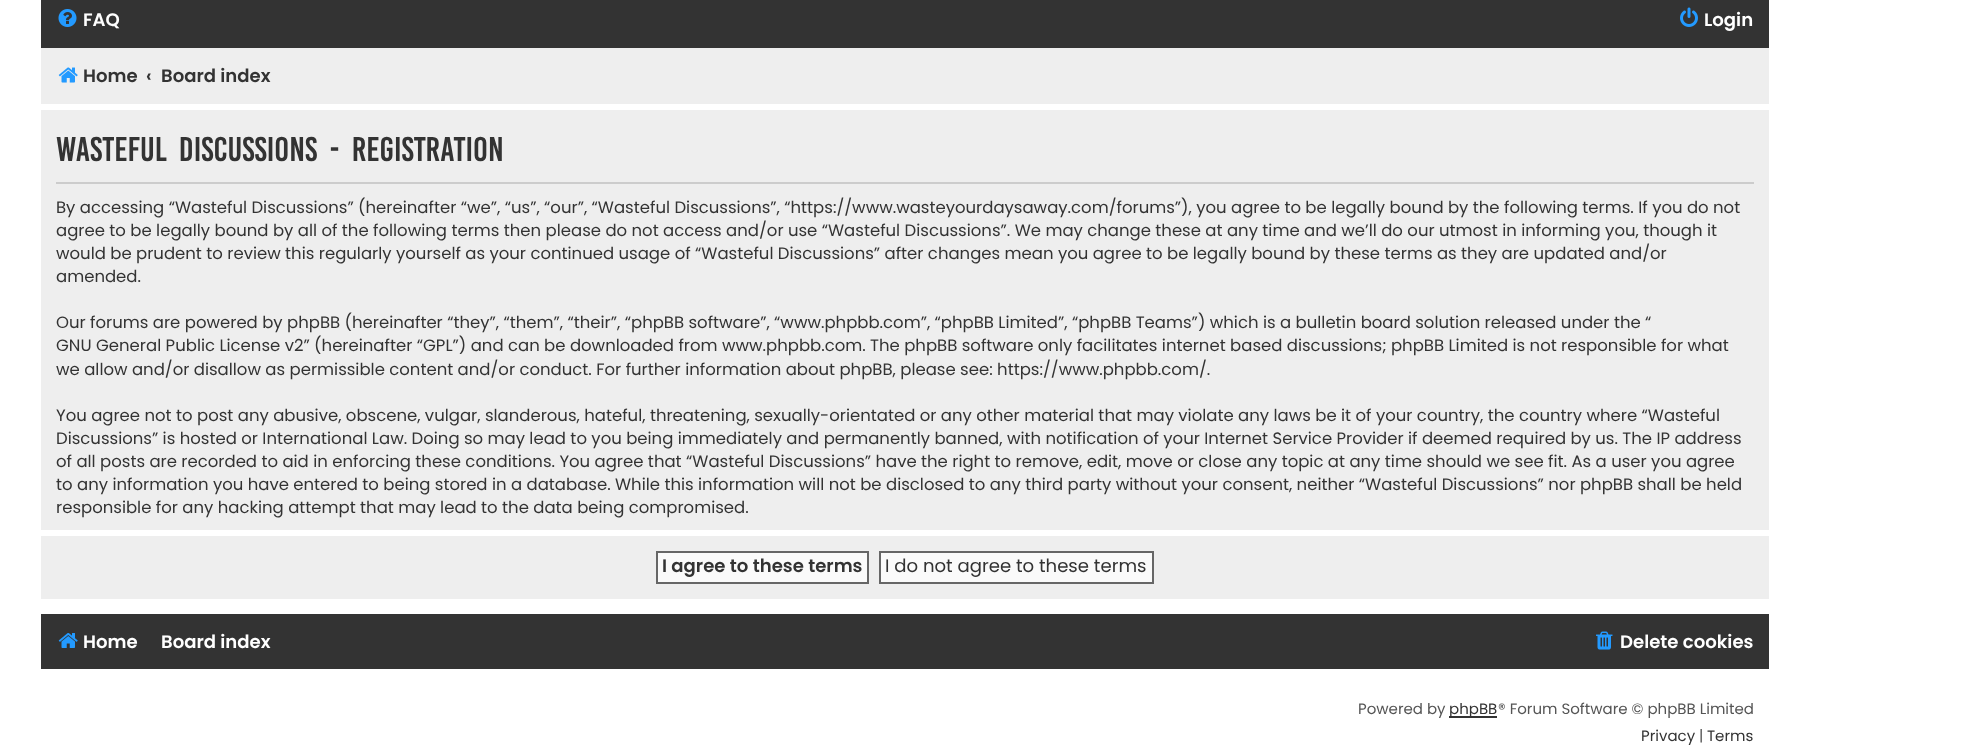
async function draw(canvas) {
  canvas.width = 1972;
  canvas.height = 749;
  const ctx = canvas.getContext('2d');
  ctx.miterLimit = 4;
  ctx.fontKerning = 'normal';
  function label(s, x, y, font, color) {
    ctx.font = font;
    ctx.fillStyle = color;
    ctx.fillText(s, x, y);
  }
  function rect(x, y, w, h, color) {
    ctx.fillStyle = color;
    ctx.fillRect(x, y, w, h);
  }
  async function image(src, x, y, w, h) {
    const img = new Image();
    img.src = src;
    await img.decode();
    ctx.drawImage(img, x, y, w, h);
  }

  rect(0, 0, 1972, 749, '#fff');
  rect(41, 0, 1728, 48, '#333');
  await image('assets/img1.png', 58, 9, 19, 18);
  label('FAQ', 83, 26, '600 18.1px Poppins', '#fff');
  await image('assets/img2.png', 1680, 7, 18, 20);
  label('Login', 1704, 26, '600 18.1px Poppins', '#fff');
  rect(41, 48, 1728, 56, '#eee');
  await image('assets/img3.png', 58, 67, 20, 16);
  label('Home', 83, 82, '600 18.1px Poppins', '#333');
  label('‹', 146, 82, '600 18.1px Poppins', '#333');
  label('Board index', 161, 82, '600 18.1px Poppins', '#333');
  rect(41, 110, 1728, 420, '#eee');
  rect(56, 182, 1698, 2, '#ccc');
  ctx.wordSpacing = '6px';
  label('Wasteful Discussions - Registration', 56, 161, '26.4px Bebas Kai', '#333');
  ctx.wordSpacing = '0px';
  label('By accessing “Wasteful Discussions” (hereinafter “we”, “us”, “our”, “Wasteful Discussions”, “https://www.wasteyourdaysaway.com/forums”), you agree to be legally bound by the following terms. If you do not', 56, 213, '16.5px Poppins', '#333');
  label('agree to be legally bound by all of the following terms then please do not access and/or use “Wasteful Discussions”. We may change these at any time and we’ll do our utmost in informing you, though it', 56, 236, '16.5px Poppins', '#333');
  label('would be prudent to review this regularly yourself as your continued usage of “Wasteful Discussions” after changes mean you agree to be legally bound by these terms as they are updated and/or', 56, 259, '16.5px Poppins', '#333');
  label('amended.', 56, 282, '16.5px Poppins', '#333');
  label('Our forums are powered by phpBB (hereinafter “they”, “them”, “their”, “phpBB software”, “www.phpbb.com”, “phpBB Limited”, “phpBB Teams”) which is a bulletin board solution released under the “', 56, 328, '16.5px Poppins', '#333');
  label('GNU General Public License v2” (hereinafter “GPL”) and can be downloaded from www.phpbb.com. The phpBB software only facilitates internet based discussions; phpBB Limited is not responsible for what', 56, 351, '16.5px Poppins', '#333');
  label('we allow and/or disallow as permissible content and/or conduct. For further information about phpBB, please see: https://www.phpbb.com/.', 56, 375, '16.5px Poppins', '#333');
  label('You agree not to post any abusive, obscene, vulgar, slanderous, hateful, threatening, sexually-orientated or any other material that may violate any laws be it of your country, the country where “Wasteful', 56, 421, '16.5px Poppins', '#333');
  label('Discussions” is hosted or International Law. Doing so may lead to you being immediately and permanently banned, with notification of your Internet Service Provider if deemed required by us. The IP address', 56, 444, '16.5px Poppins', '#333');
  label('of all posts are recorded to aid in enforcing these conditions. You agree that “Wasteful Discussions” have the right to remove, edit, move or close any topic at any time should we see fit. As a user you agree', 56, 467, '16.5px Poppins', '#333');
  label('to any information you have entered to being stored in a database. While this information will not be disclosed to any third party without your consent, neither “Wasteful Discussions” nor phpBB shall be held', 56, 490, '16.5px Poppins', '#333');
  label('responsible for any hacking attempt that may lead to the data being compromised.', 56, 513, '16.5px Poppins', '#333');
  rect(41, 536, 1728, 63, '#eee');
  ctx.fillStyle = '#fafafa';
  ctx.beginPath();
  ctx.rect(657, 552, 211, 31);
  ctx.fill();
  ctx.strokeStyle = '#666';
  ctx.lineWidth = 2;
  ctx.stroke();
  label('I agree to these terms', 662, 572, '600 18.1px Poppins', '#333');
  ctx.fillStyle = '#fafafa';
  ctx.beginPath();
  ctx.rect(880, 552, 273, 31);
  ctx.fill();
  ctx.stroke();
  label('I do not agree to these terms', 885, 572, '18.1px Poppins', '#333');
  rect(41, 614, 1728, 55, '#333');
  await image('assets/img4.png', 58, 633, 20, 15);
  label('Home', 83, 648, '600 18.1px Poppins', '#fff');
  label('Board index', 161, 648, '600 18.1px Poppins', '#fff');
  await image('assets/img5.png', 1596, 631, 17, 19);
  label('Delete cookies', 1620, 648, '600 18.1px Poppins', '#fff');
  label('Powered by', 1358, 714, '15px Poppins', '#555');
  rect(1449, 716, 48, 2, '#333');
  label('phpBB', 1449, 714, '15px Poppins', '#333');
  label('® Forum Software © phpBB Limited', 1498, 714, '15px Poppins', '#555');
  label('Privacy', 1641, 741, '15px Poppins', '#333');
  label('|', 1699, 741, '15px Poppins', '#555');
  label('Terms', 1707, 741, '15px Poppins', '#333');
}

draw(document.querySelector('canvas'));
